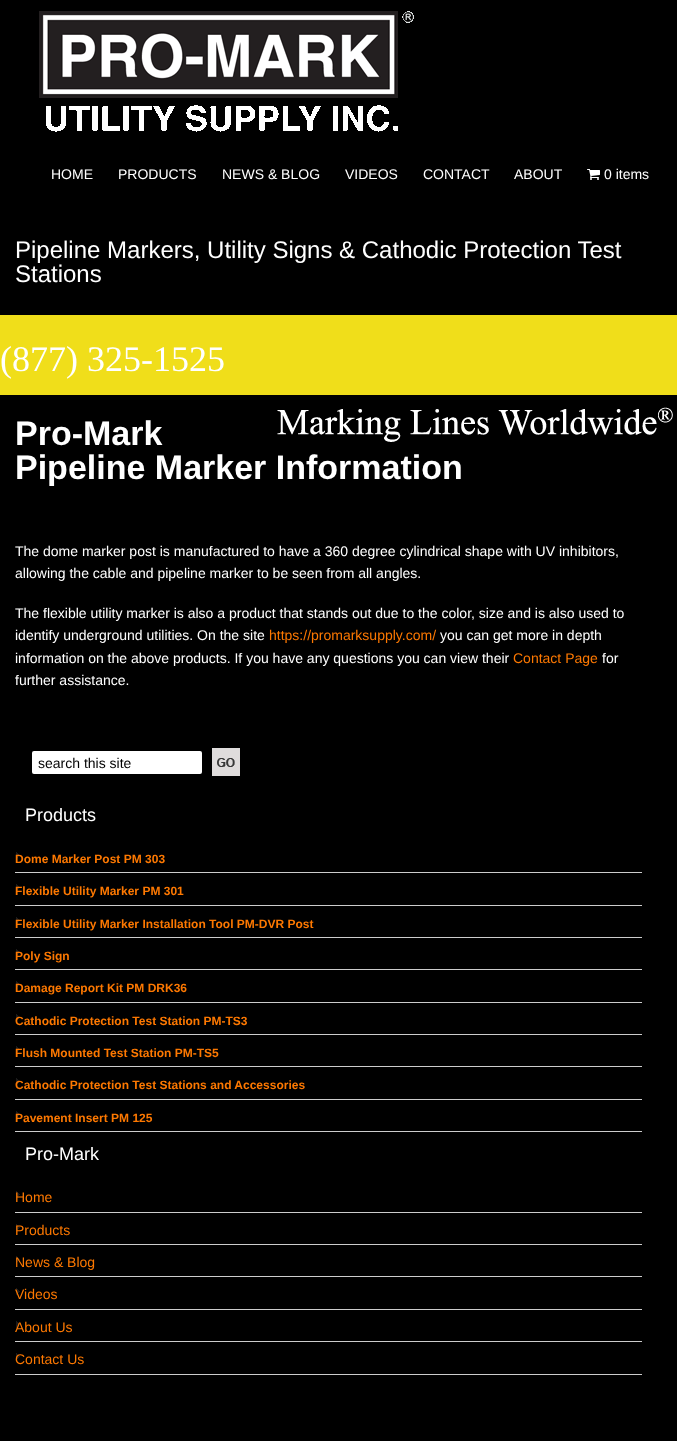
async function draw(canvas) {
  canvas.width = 677;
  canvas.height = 1441;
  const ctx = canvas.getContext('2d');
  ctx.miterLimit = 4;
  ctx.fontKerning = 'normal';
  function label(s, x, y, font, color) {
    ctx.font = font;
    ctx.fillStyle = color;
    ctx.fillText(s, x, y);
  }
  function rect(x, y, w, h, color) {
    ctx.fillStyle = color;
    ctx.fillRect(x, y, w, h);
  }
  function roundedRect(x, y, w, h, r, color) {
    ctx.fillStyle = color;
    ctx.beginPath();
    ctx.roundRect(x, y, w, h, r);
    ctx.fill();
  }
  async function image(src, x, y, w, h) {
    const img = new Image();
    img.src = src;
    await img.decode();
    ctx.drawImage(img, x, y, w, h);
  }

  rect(0, 0, 677, 1441, '#000');
  await image('assets/img1.png', 39, 11, 375, 121);
  label('HOME', 51, 179, '14px Liberation Sans', '#fff');
  label('PRODUCTS', 118, 179, '14px Liberation Sans', '#fff');
  label('NEWS & BLOG', 222, 179, '14px Liberation Sans', '#fff');
  label('VIDEOS', 345, 179, '14px Liberation Sans', '#fff');
  label('CONTACT', 423, 179, '14px Liberation Sans', '#fff');
  label('ABOUT', 514, 179, '14px Liberation Sans', '#fff');
  await image('assets/img2.png', 587, 169, 13, 11);
  label('0 items', 604, 179, '14px Liberation Sans', '#fff');
  label('Pipeline Markers, Utility Signs & Cathodic Protection Test', 15, 258, '24px Liberation Sans', '#fff');
  label('Stations', 15, 282, '24px Liberation Sans', '#fff');
  rect(0, 315, 677, 80, '#f0de1a');
  label('(877) 325-1525', 0, 371, '36px Liberation Serif', '#fff');
  await image('assets/img3.png', 277, 407, 396, 35);
  label('Pro-Mark', 15, 445, 'bold 34px Liberation Sans', '#fff');
  label('Pipeline Marker Information', 15, 479, 'bold 34px Liberation Sans', '#fff');
  label('The dome marker post is manufactured to have a 360 degree cylindrical shape with UV inhibitors,', 15, 556, '14px Liberation Sans', '#fff');
  label('allowing the cable and pipeline marker to be seen from all angles.', 15, 578, '14px Liberation Sans', '#fff');
  label('The flexible utility marker is also a product that stands out due to the color, size and is also used to', 15, 618, '14px Liberation Sans', '#fff');
  label('identify underground utilities. On the site', 15, 640, '14px Liberation Sans', '#fff');
  label('https://promarksupply.com/', 269, 640, '14px Liberation Sans', '#fd7800');
  label('you can get more in depth', 440, 640, '14px Liberation Sans', '#fff');
  label('information on the above products. If you have any questions you can view their', 15, 663, '14px Liberation Sans', '#fff');
  label('Contact Page', 513, 663, '14px Liberation Sans', '#fd7800');
  label('for', 602, 663, '14px Liberation Sans', '#fff');
  label('further assistance.', 15, 685, '14px Liberation Sans', '#fff');
  roundedRect(32, 751, 170, 23, 2, '#fff');
  label('search this site', 38, 768, '14px Liberation Sans', '#000');
  await image('assets/img4.png', 212, 748, 28, 28);
  label('Products', 25, 821, '18px Liberation Sans', '#fff');
  await image('assets/img5.png', 16, 852, 4, 7);
  rect(15, 872, 627, 1, '#ccc');
  label('Dome Marker Post PM 303', 15, 863, 'bold 12px Liberation Sans', '#fd7800');
  await image('assets/img5.png', 16, 884, 4, 7);
  rect(15, 905, 627, 1, '#ccc');
  label('Flexible Utility Marker PM 301', 15, 895, 'bold 12px Liberation Sans', '#fd7800');
  await image('assets/img5.png', 16, 917, 4, 7);
  rect(15, 937, 627, 1, '#ccc');
  label('Flexible Utility Marker Installation Tool PM-DVR Post', 15, 928, 'bold 12px Liberation Sans', '#fd7800');
  await image('assets/img5.png', 16, 949, 4, 7);
  rect(15, 969, 627, 1, '#ccc');
  label('Poly Sign', 15, 960, 'bold 12px Liberation Sans', '#fd7800');
  await image('assets/img5.png', 16, 981, 4, 7);
  rect(15, 1002, 627, 1, '#ccc');
  label('Damage Report Kit PM DRK36', 15, 992, 'bold 12px Liberation Sans', '#fd7800');
  await image('assets/img5.png', 16, 1014, 4, 7);
  rect(15, 1034, 627, 1, '#ccc');
  label('Cathodic Protection Test Station PM-TS3', 15, 1025, 'bold 12px Liberation Sans', '#fd7800');
  await image('assets/img5.png', 16, 1046, 4, 7);
  rect(15, 1066, 627, 1, '#ccc');
  label('Flush Mounted Test Station PM-TS5', 15, 1057, 'bold 12px Liberation Sans', '#fd7800');
  await image('assets/img5.png', 16, 1078, 4, 7);
  rect(15, 1099, 627, 1, '#ccc');
  label('Cathodic Protection Test Stations and Accessories', 15, 1089, 'bold 12px Liberation Sans', '#fd7800');
  await image('assets/img5.png', 16, 1111, 4, 7);
  rect(15, 1131, 627, 1, '#ccc');
  label('Pavement Insert PM 125', 15, 1122, 'bold 12px Liberation Sans', '#fd7800');
  label('Pro-Mark', 25, 1160, '18px Liberation Sans', '#fff');
  await image('assets/img5.png', 16, 1191, 4, 7);
  rect(15, 1212, 627, 1, '#ccc');
  label('Home', 15, 1202, '14px Liberation Sans', '#fd7800');
  await image('assets/img5.png', 16, 1224, 4, 7);
  rect(15, 1244, 627, 1, '#ccc');
  label('Products', 15, 1235, '14px Liberation Sans', '#fd7800');
  await image('assets/img5.png', 16, 1256, 4, 7);
  rect(15, 1276, 627, 1, '#ccc');
  label('News & Blog', 15, 1267, '14px Liberation Sans', '#fd7800');
  await image('assets/img5.png', 16, 1288, 4, 7);
  rect(15, 1309, 627, 1, '#ccc');
  label('Videos', 15, 1299, '14px Liberation Sans', '#fd7800');
  await image('assets/img5.png', 16, 1321, 4, 7);
  rect(15, 1341, 627, 1, '#ccc');
  label('About Us', 15, 1332, '14px Liberation Sans', '#fd7800');
  await image('assets/img5.png', 16, 1353, 4, 7);
  rect(15, 1374, 627, 1, '#ccc');
  label('Contact Us', 15, 1364, '14px Liberation Sans', '#fd7800');
}

draw(document.querySelector('canvas'));
